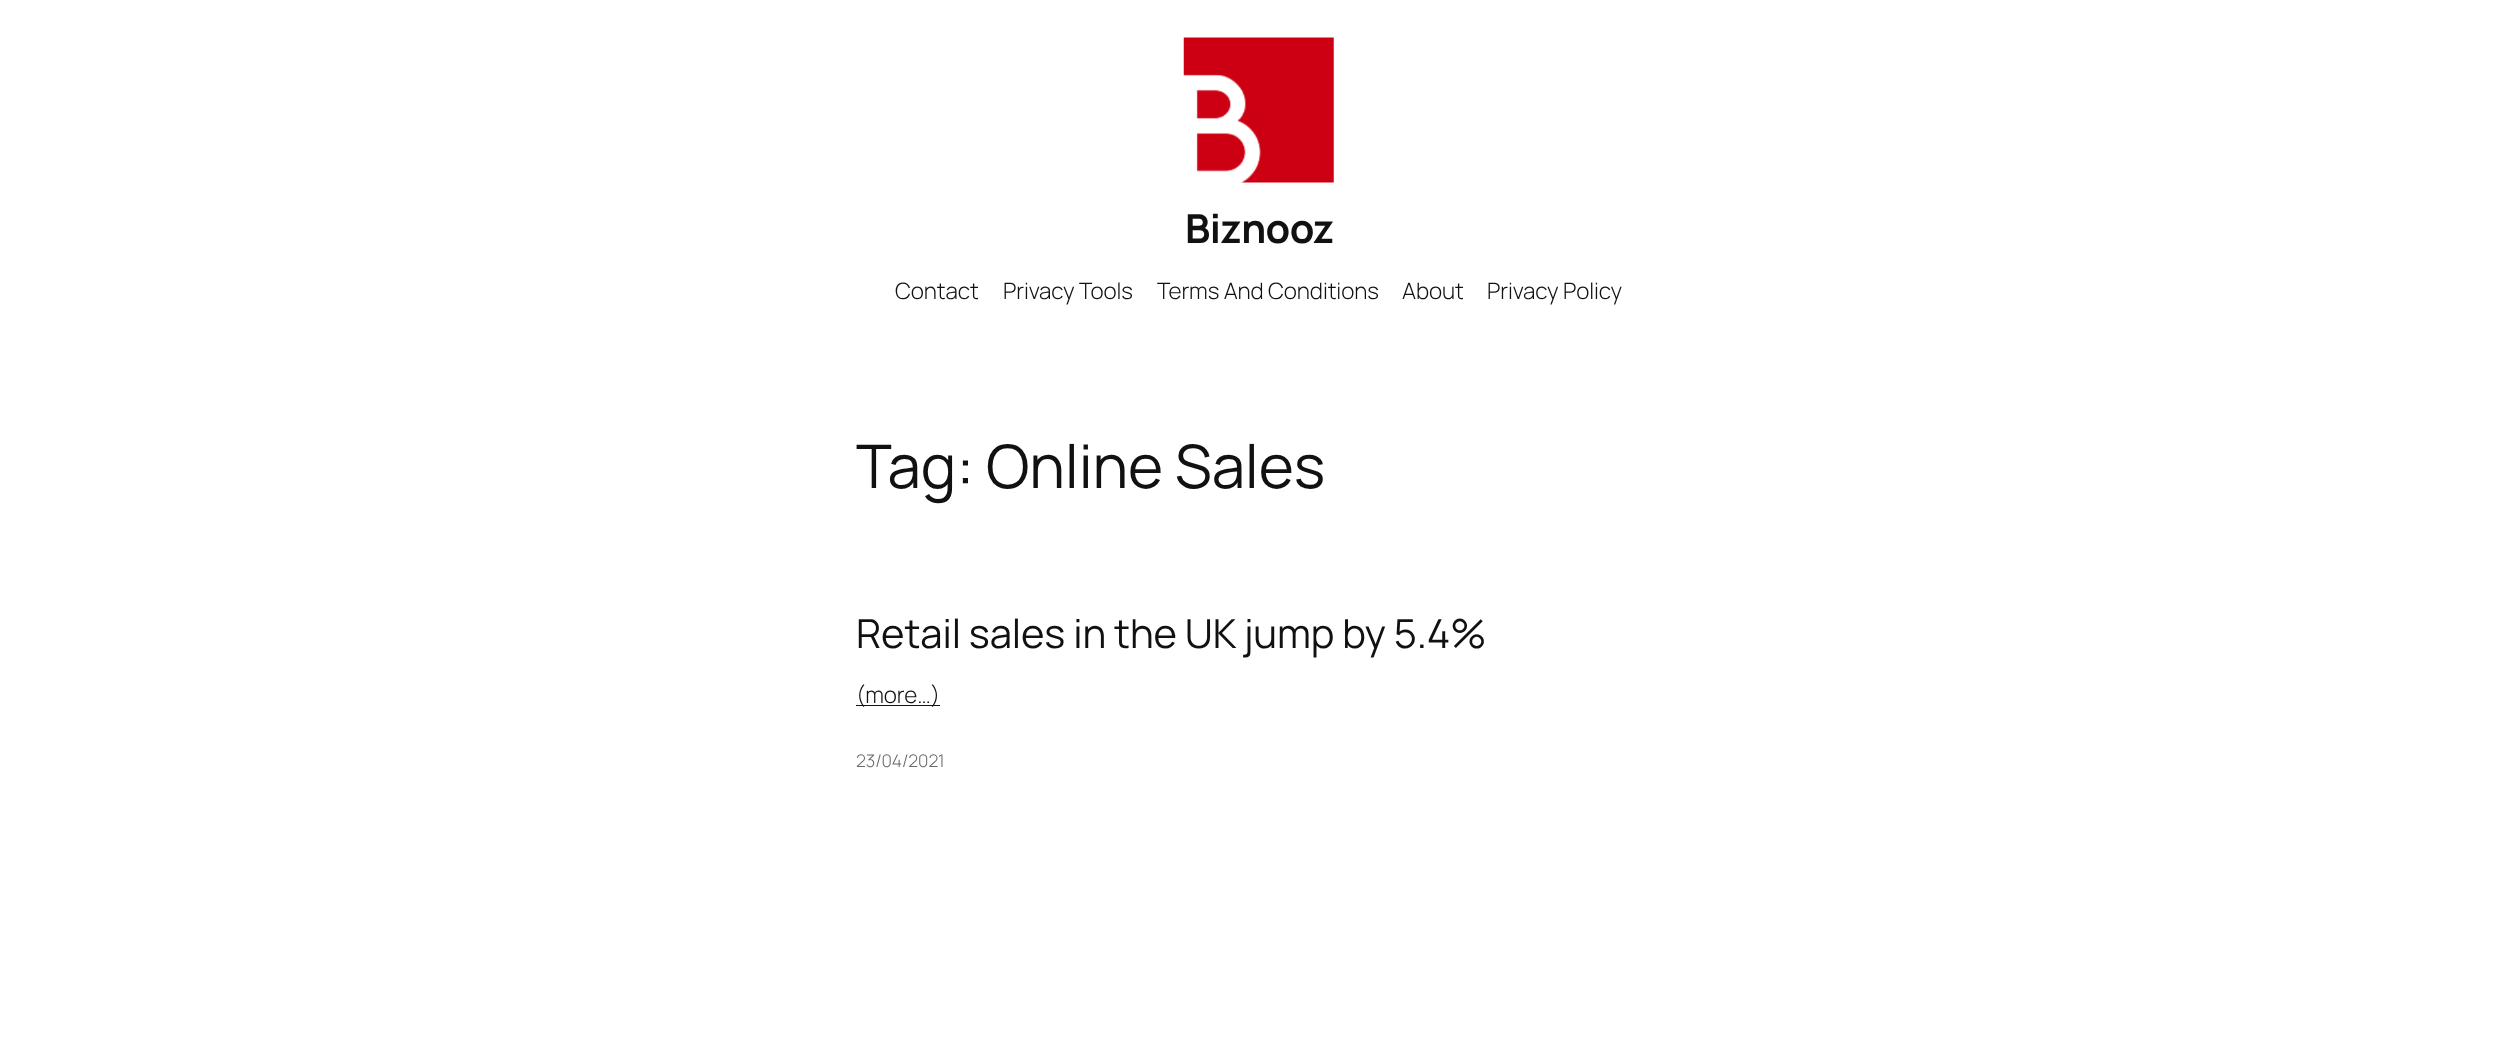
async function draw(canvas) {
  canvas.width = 2517;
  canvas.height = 1057;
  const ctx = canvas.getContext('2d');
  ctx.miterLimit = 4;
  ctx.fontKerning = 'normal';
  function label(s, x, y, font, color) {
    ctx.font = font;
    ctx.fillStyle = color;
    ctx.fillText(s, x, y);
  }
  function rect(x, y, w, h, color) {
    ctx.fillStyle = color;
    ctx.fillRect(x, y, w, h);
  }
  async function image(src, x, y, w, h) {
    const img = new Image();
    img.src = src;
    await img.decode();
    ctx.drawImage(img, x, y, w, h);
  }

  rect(0, 0, 2517, 1057, '#fff');
  await image('assets/img1.png', 1183, 37, 151, 146);
  ctx.letterSpacing = '-0.5px';
  label('Biznooz', 1185, 243, 'bold 40px Manrope', '#111');
  ctx.letterSpacing = '-0.1px';
  label('Contact', 895, 299, '300 22.5px Manrope', '#111');
  label('Privacy Tools', 1003, 299, '300 22.5px Manrope', '#111');
  label('Terms And Conditions', 1157, 299, '300 22.5px Manrope', '#111');
  label('About', 1402, 299, '300 22.5px Manrope', '#111');
  label('Privacy Policy', 1487, 299, '300 22.5px Manrope', '#111');
  label('Tag: Online Sales', 856, 488, '60px Manrope', '#111');
  label('Retail sales in the UK jump by 5.4%', 856, 648, '40px Manrope', '#111');
  rect(856, 705, 84, 1, '#111');
  label('(more…)', 856, 703, '300 22.5px Manrope', '#111');
  label('23/04/2021', 856, 767, '300 17.5px Manrope', '#686868');
}

draw(document.querySelector('canvas'));
